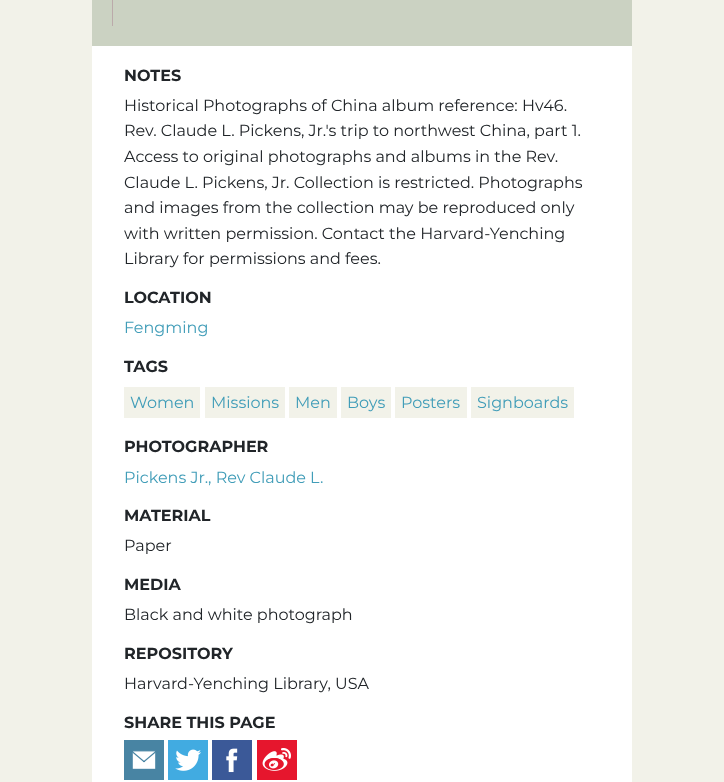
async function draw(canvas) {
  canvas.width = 724;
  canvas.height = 782;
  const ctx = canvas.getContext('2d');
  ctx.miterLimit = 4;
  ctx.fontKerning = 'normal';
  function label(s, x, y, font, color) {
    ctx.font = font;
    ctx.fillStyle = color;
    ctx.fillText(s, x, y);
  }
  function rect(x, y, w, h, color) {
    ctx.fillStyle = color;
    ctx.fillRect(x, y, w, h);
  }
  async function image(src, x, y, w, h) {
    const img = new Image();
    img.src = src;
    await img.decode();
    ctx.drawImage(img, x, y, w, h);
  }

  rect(0, 0, 724, 782, '#f2f2e9');
  rect(92, 46, 540, 736, '#fff');
  rect(92, 0, 540, 46, '#cbd2c2');
  rect(112, 0, 1, 26, '#baa');
  label('NOTES', 124, 81, 'bold 16px Montserrat', '#212529');
  label('Historical Photographs of China album reference: Hv46.', 124, 111, '16px Montserrat', '#212529');
  label('Rev. Claude L. Pickens, Jr.\'s trip to northwest China, part 1.', 124, 136, '16px Montserrat', '#212529');
  label('Access to original photographs and albums in the Rev.', 124, 162, '16px Montserrat', '#212529');
  label('Claude L. Pickens, Jr. Collection is restricted. Photographs', 124, 188, '16px Montserrat', '#212529');
  label('and images from the collection may be reproduced only', 124, 213, '16px Montserrat', '#212529');
  label('with written permission. Contact the Harvard-Yenching', 124, 239, '16px Montserrat', '#212529');
  label('Library for permissions and fees.', 124, 264, '16px Montserrat', '#212529');
  label('LOCATION', 124, 303, 'bold 16px Montserrat', '#212529');
  label('Fengming', 124, 333, '16px Montserrat', '#419db8');
  label('TAGS', 124, 372, 'bold 16px Montserrat', '#212529');
  rect(124, 387, 76, 31, '#f2f2e9');
  label('Women', 130, 408, '16px Montserrat', '#419db8');
  rect(205, 387, 80, 31, '#f2f2e9');
  label('Missions', 211, 408, '16px Montserrat', '#419db8');
  rect(289, 387, 48, 31, '#f2f2e9');
  label('Men', 295, 408, '16px Montserrat', '#419db8');
  rect(341, 387, 50, 31, '#f2f2e9');
  label('Boys', 347, 408, '16px Montserrat', '#419db8');
  rect(395, 387, 72, 31, '#f2f2e9');
  label('Posters', 401, 408, '16px Montserrat', '#419db8');
  rect(471, 387, 103, 31, '#f2f2e9');
  label('Signboards', 477, 408, '16px Montserrat', '#419db8');
  label('PHOTOGRAPHER', 124, 452, 'bold 16px Montserrat', '#212529');
  label('Pickens Jr., Rev Claude L.', 124, 483, '16px Montserrat', '#419db8');
  label('MATERIAL', 124, 521, 'bold 16px Montserrat', '#212529');
  label('Paper', 124, 551, '16px Montserrat', '#212529');
  label('MEDIA', 124, 590, 'bold 16px Montserrat', '#212529');
  label('Black and white photograph', 124, 620, '16px Montserrat', '#212529');
  label('REPOSITORY', 124, 659, 'bold 16px Montserrat', '#212529');
  label('Harvard-Yenching Library, USA', 124, 689, '16px Montserrat', '#212529');
  label('SHARE THIS PAGE', 124, 728, 'bold 16px Montserrat', '#212529');
  await image('assets/img1.png', 124, 740, 40, 40);
  await image('assets/img2.png', 168, 740, 40, 40);
  await image('assets/img3.png', 212, 740, 40, 40);
  await image('assets/img4.png', 257, 740, 40, 40);
}

draw(document.querySelector('canvas'));
